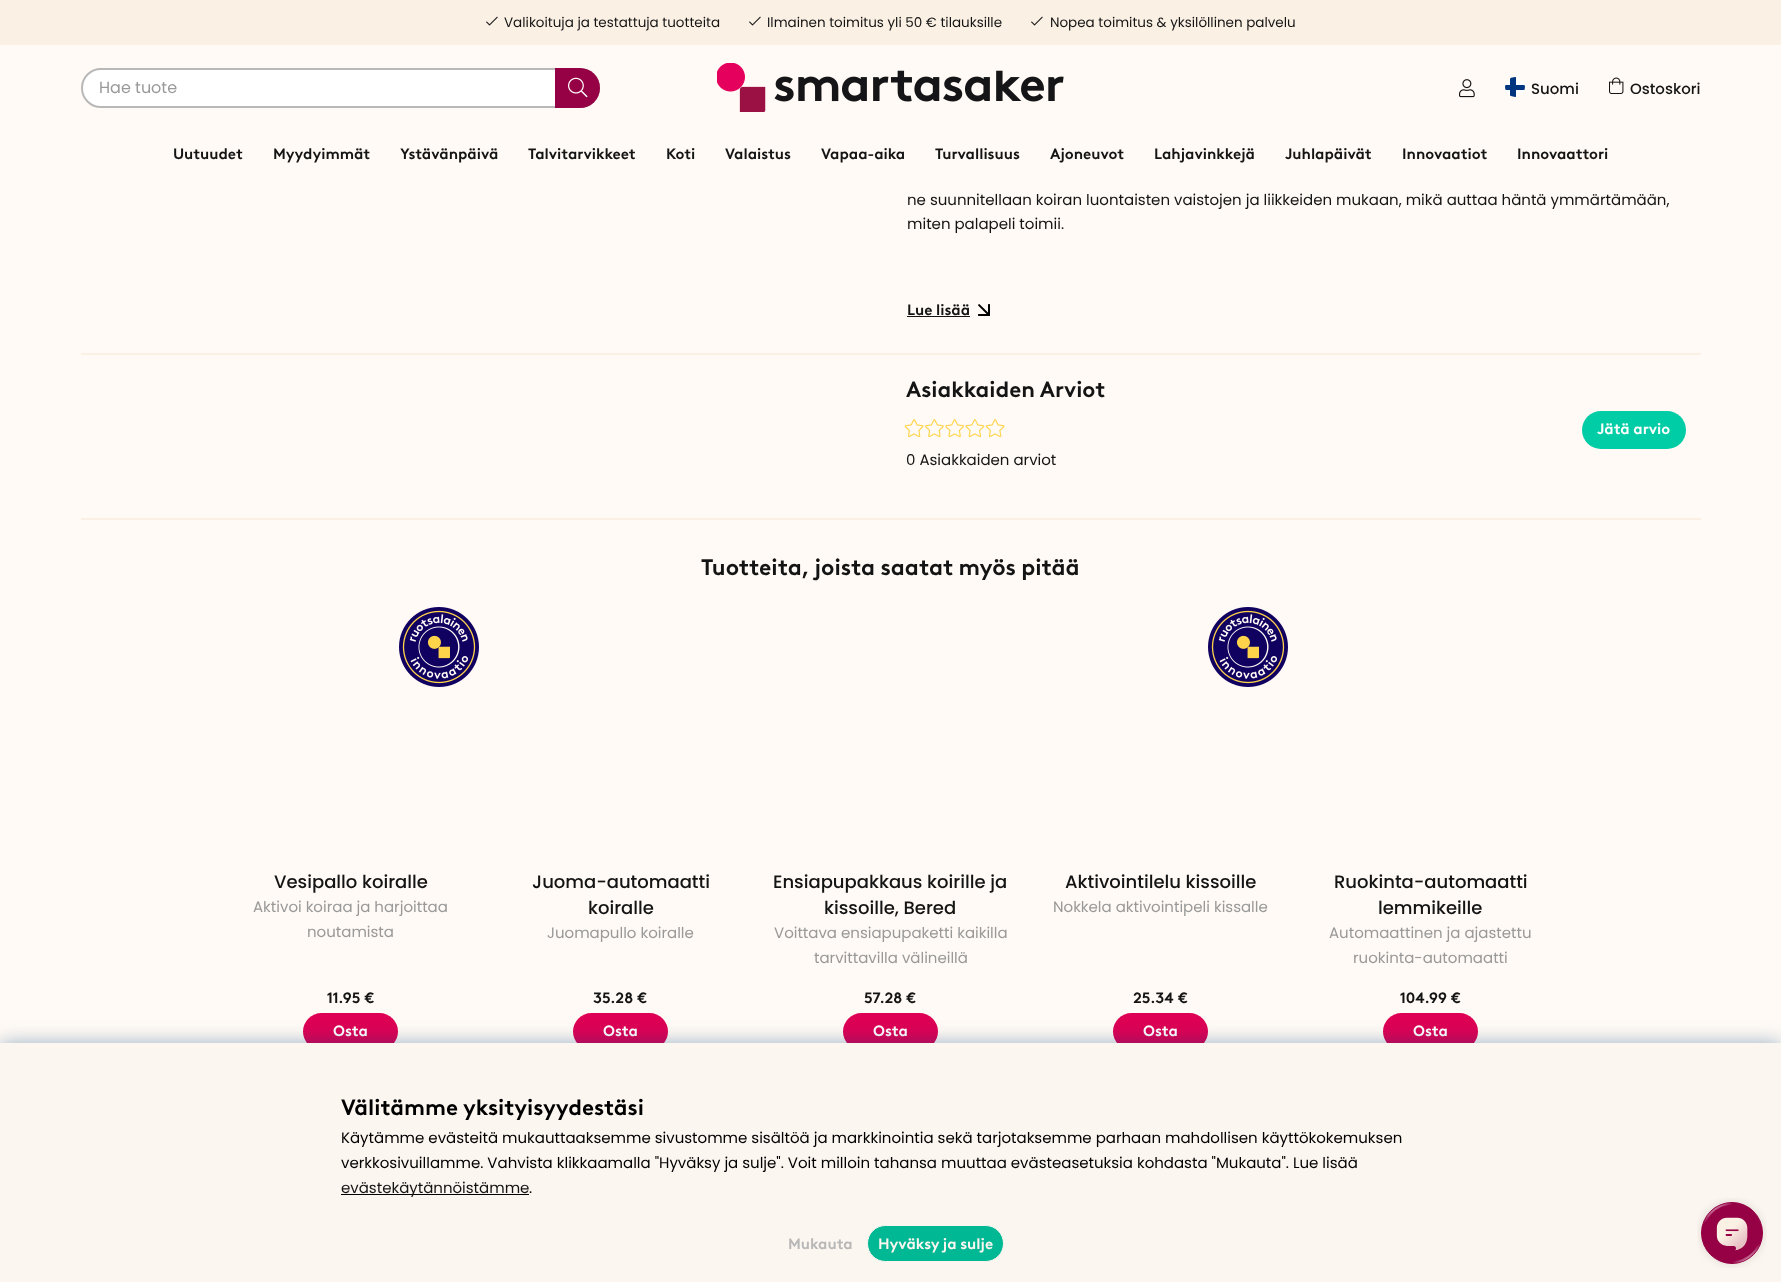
async function draw(canvas) {
  canvas.width = 1781;
  canvas.height = 1282;
  const ctx = canvas.getContext('2d');
  ctx.miterLimit = 4;
  ctx.fontKerning = 'normal';
  function label(s, x, y, font, color) {
    ctx.font = font;
    ctx.fillStyle = color;
    ctx.fillText(s, x, y);
  }
  function rect(x, y, w, h, color) {
    ctx.fillStyle = color;
    ctx.fillRect(x, y, w, h);
  }
  function roundedRect(x, y, w, h, r, color) {
    ctx.fillStyle = color;
    ctx.beginPath();
    ctx.roundRect(x, y, w, h, r);
    ctx.fill();
  }
  async function image(src, x, y, w, h) {
    const img = new Image();
    img.src = src;
    await img.decode();
    ctx.drawImage(img, x, y, w, h);
  }

  rect(0, 0, 1781, 1282, '#fffaf5');
  rect(0, 0, 1781, 45, '#fbf0e4');
  await image('assets/img1.png', 486, 16, 12, 10);
  label('Valikoituja ja testattuja tuotteita', 504, 27, '13.5px Poppins', '#141414');
  await image('assets/img1.png', 749, 16, 12, 10);
  label('Ilmainen toimitus yli 50 € tilauksille', 767, 27, '13.5px Poppins', '#141414');
  await image('assets/img1.png', 1031, 16, 12, 10);
  label('Nopea toimitus & yksilöllinen palvelu', 1050, 27, '13.5px Poppins', '#141414');
  roundedRect(81, 68, 519, 40, 20, '#fff');
  ctx.beginPath();
  ctx.roundRect(82, 69, 517, 38, 19);
  ctx.strokeStyle = '#00000047';
  ctx.lineWidth = 2;
  ctx.stroke();
  label('Hae tuote', 99, 93, '16px Poppins', '#999');
  ctx.fillStyle = '#960044';
  ctx.beginPath();
  ctx.roundRect(555, 68, 45, 40, [0, 20, 20, 0]);
  ctx.fill();
  await image('assets/img2.png', 568, 77, 20, 21);
  await image('assets/img3.png', 717, 63, 347, 49);
  await image('assets/img4.png', 1459, 79, 16, 19);
  ctx.fillStyle = '#fff';
  ctx.beginPath();
  ctx.arc(1515, 87, 10, 0, 2 * Math.PI);
  ctx.fill();
  ctx.save();
  ctx.beginPath();
  ctx.roundRect(1505, 77, 20, 20, 10);
  ctx.clip();
  rect(1505, 85, 20, 5, '#003580');
  rect(1510, 77, 6, 20, '#003580');
  ctx.restore();
  label('Suomi', 1531, 94, '500 15px Poppins', '#141414');
  await image('assets/img5.png', 1609, 77, 15, 17);
  label('Ostoskori', 1630, 94, '500 15px Poppins', '#141414');
  label('Uutuudet', 173, 159, 'bold 15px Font', '#141414');
  label('Myydyimmät', 273, 159, 'bold 15px Font', '#141414');
  label('Ystävänpäivä', 400, 159, 'bold 15px Font', '#141414');
  label('Talvitarvikkeet', 528, 159, 'bold 15px Font', '#141414');
  label('Koti', 666, 159, 'bold 15px Font', '#141414');
  label('Valaistus', 725, 159, 'bold 15px Font', '#141414');
  label('Vapaa-aika', 821, 159, 'bold 15px Font', '#141414');
  label('Turvallisuus', 935, 159, 'bold 15px Font', '#141414');
  label('Ajoneuvot', 1050, 159, 'bold 15px Font', '#141414');
  label('Lahjavinkkejä', 1154, 159, 'bold 15px Font', '#141414');
  label('Juhlapäivät', 1285, 159, 'bold 15px Font', '#141414');
  label('Innovaatiot', 1402, 159, 'bold 15px Font', '#141414');
  label('Innovaattori', 1517, 159, 'bold 15px Font', '#141414');
  label('ne suunnitellaan koiran luontaisten vaistojen ja liikkeiden mukaan, mikä auttaa häntä ymmärtämään,', 907, 205, '15px Poppins', '#141414');
  label('miten palapeli toimii.', 907, 229, '15px Poppins', '#141414');
  label('Lue lisää', 907, 315, 'bold 15px Font', '#141414');
  rect(907, 316, 63, 1, '#141414');
  await image('assets/img6.png', 978, 304, 12, 12);
  rect(81, 353, 1620, 2, '#fbf0e4');
  label('Asiakkaiden Arviot', 906, 397, 'bold 22px Font', '#141414');
  await image('assets/img7.png', 904, 419, 101, 19);
  roundedRect(1582, 411, 104, 38, 19, '#00cca5');
  label('Jätä arvio', 1597, 434, 'bold 15px Font', '#fff');
  label('0 Asiakkaiden arviot', 906, 465, '15px Poppins', '#141414');
  rect(81, 518, 1620, 2, '#fbf0e4');
  label('Tuotteita, joista saatat myös pitää', 701, 575, 'bold 22.5px Font', '#141414');
  await image('assets/img8.png', 399, 607, 80, 80);
  label('Vesipallo koiralle', 274, 888, '500 18px Poppins', '#141414');
  label('Aktivoi koiraa ja harjoittaa', 253, 912, '15px Poppins', '#999');
  label('noutamista', 307, 937, '15px Poppins', '#999');
  label('11.95 €', 327, 1003, 'bold 15px Font', '#141414');
  roundedRect(303, 1013, 95, 37, 18.5, '#dd0054');
  label('Osta', 333, 1036, 'bold 15px Font', '#fff');
  label('Juoma-automaatti', 532, 888, '500 18px Poppins', '#141414');
  label('koiralle', 588, 914, '500 18px Poppins', '#141414');
  label('Juomapullo koiralle', 547, 938, '15px Poppins', '#999');
  label('35.28 €', 593, 1003, 'bold 15px Font', '#141414');
  roundedRect(573, 1013, 95, 37, 18.5, '#dd0054');
  label('Osta', 603, 1036, 'bold 15px Font', '#fff');
  label('Ensiapupakkaus koirille ja', 773, 888, '500 18px Poppins', '#141414');
  label('kissoille, Bered', 824, 914, '500 18px Poppins', '#141414');
  label('Voittava ensiapupaketti kaikilla', 774, 938, '15px Poppins', '#999');
  label('tarvittavilla välineillä', 814, 963, '15px Poppins', '#999');
  label('57.28 €', 864, 1003, 'bold 15px Font', '#141414');
  roundedRect(843, 1013, 95, 37, 18.5, '#dd0054');
  label('Osta', 873, 1036, 'bold 15px Font', '#fff');
  await image('assets/img8.png', 1208, 607, 80, 80);
  label('Aktivointilelu kissoille', 1065, 888, '500 18px Poppins', '#141414');
  label('Nokkela aktivointipeli kissalle', 1053, 912, '15px Poppins', '#999');
  label('25.34 €', 1133, 1003, 'bold 15px Font', '#141414');
  roundedRect(1113, 1013, 95, 37, 18.5, '#dd0054');
  label('Osta', 1143, 1036, 'bold 15px Font', '#fff');
  label('Ruokinta-automaatti', 1334, 888, '500 18px Poppins', '#141414');
  label('lemmikeille', 1378, 914, '500 18px Poppins', '#141414');
  label('Automaattinen ja ajastettu', 1329, 938, '15px Poppins', '#999');
  label('ruokinta-automaatti', 1353, 963, '15px Poppins', '#999');
  label('104.99 €', 1400, 1003, 'bold 15px Font', '#141414');
  roundedRect(1383, 1013, 95, 37, 18.5, '#dd0054');
  label('Osta', 1413, 1036, 'bold 15px Font', '#fff');
  ctx.fillStyle = '#00427a70';
  ctx.filter = 'blur(10px)';
  ctx.beginPath();
  ctx.rect(0, 1044, 1781, 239);
  ctx.fill();
  ctx.filter = 'none';
  rect(0, 1043, 1781, 239, '#fcf6f0');
  label('Välitämme yksityisyydestäsi', 341, 1115, 'bold 22px Font', '#000');
  label('Käytämme evästeitä mukauttaaksemme sivustomme sisältöä ja markkinointia sekä tarjotaksemme parhaan mahdollisen käyttökokemuksen', 341, 1143, '15px Poppins', '#000');
  label('verkkosivuillamme. Vahvista klikkaamalla "Hyväksy ja sulje". Voit milloin tahansa muuttaa evästeasetuksia kohdasta "Mukauta". Lue lisää', 341, 1168, '15px Poppins', '#000');
  rect(341, 1194, 188, 1, '#000');
  label('evästekäytännöistämme', 341, 1193, '15px Poppins', '#141414');
  label('.', 529, 1193, '15px Poppins', '#000');
  label('Mukauta', 788, 1249, 'bold 15px Font', '#b8b8b8');
  ctx.fillStyle = '#00b894';
  ctx.beginPath();
  ctx.roundRect(867.5, 1225.5, 136, 36, 18);
  ctx.fill();
  ctx.strokeStyle = '#fcf6f0';
  ctx.lineWidth = 1;
  ctx.stroke();
  label('Hyväksy ja sulje', 878, 1249, 'bold 15px Font', '#fcf6f0');
  await image('assets/img9.png', 1697, 1198, 70, 70);
}

draw(document.querySelector('canvas'));
